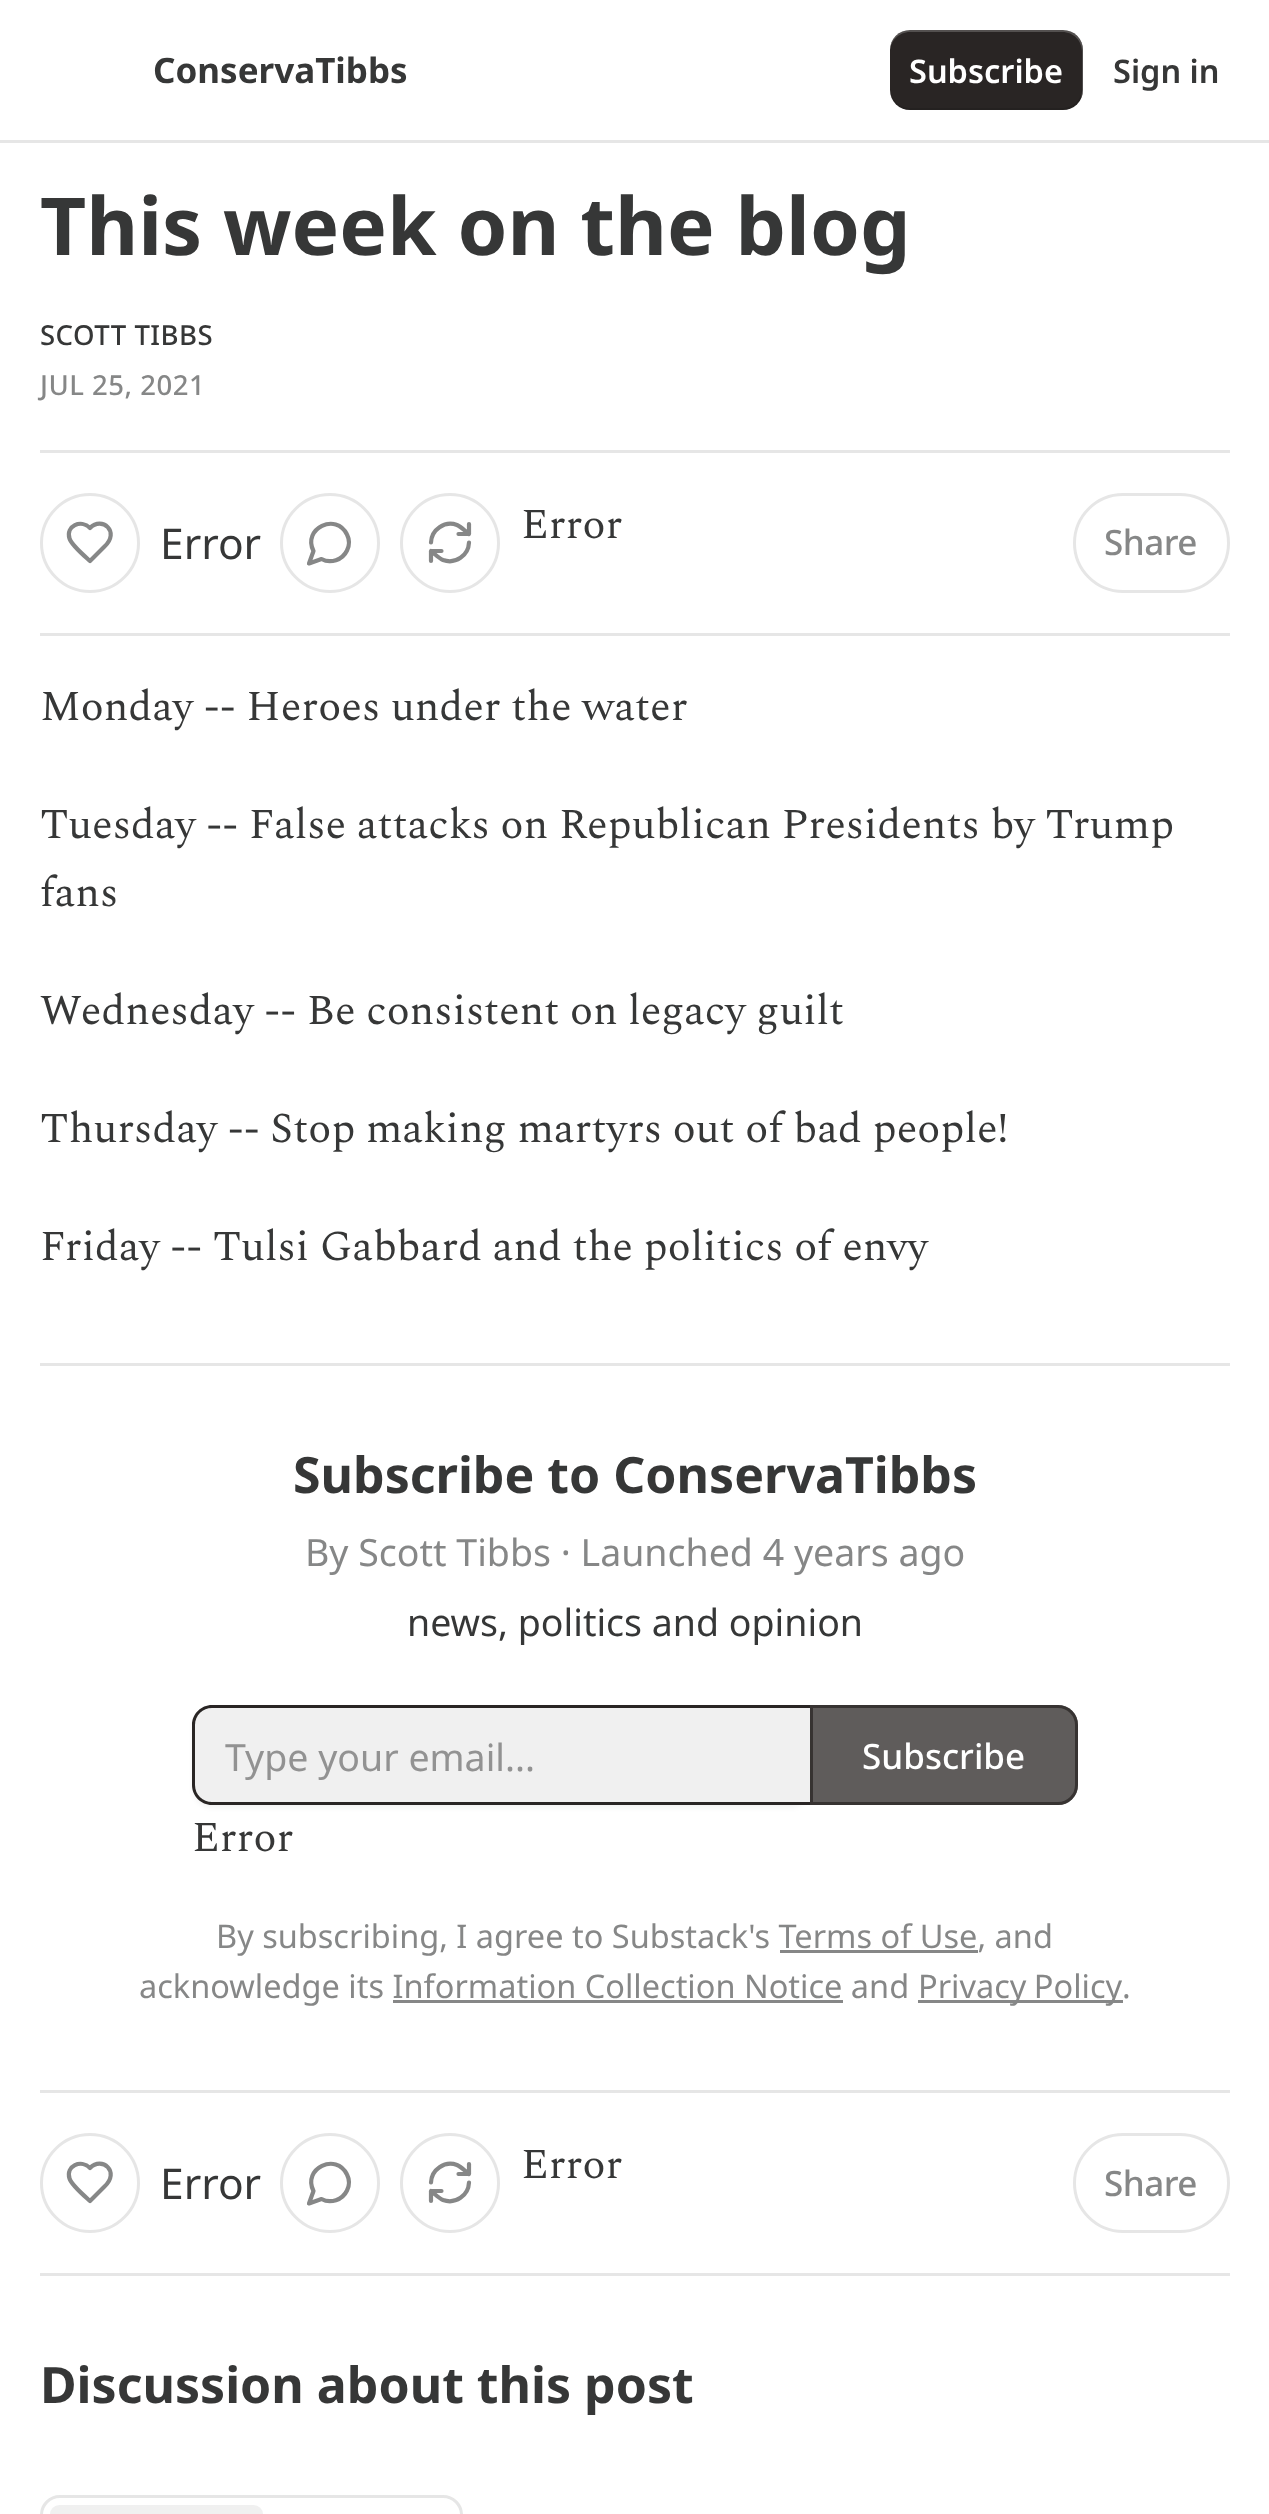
async function draw(canvas) {
  canvas.width = 1269;
  canvas.height = 2514;
  const ctx = canvas.getContext('2d');
  ctx.miterLimit = 4;
  ctx.fontKerning = 'normal';
  function label(s, x, y, font, color) {
    ctx.font = font;
    ctx.fillStyle = color;
    ctx.fillText(s, x, y);
  }
  function rect(x, y, w, h, color) {
    ctx.fillStyle = color;
    ctx.fillRect(x, y, w, h);
  }
  function roundedRect(x, y, w, h, r, color) {
    ctx.fillStyle = color;
    ctx.beginPath();
    ctx.roundRect(x, y, w, h, r);
    ctx.fill();
  }
  let path;

  rect(0, 0, 1269, 2514, '#fff');
  rect(0, 140, 1269, 3, '#e6e6e6');
  label('ConservaTibbs', 153, 83, 'bold 35px Noto Sans', '#363737');
  roundedRect(890, 30, 193, 80, 20, '#292524');
  ctx.fillStyle = '#0000001a';
  path = new Path2D('M890 88V90C890 101 899 110 910 110H1063C1074 110 1083 101 1083 90V50C1083 47 1082 44 1081 42L1082 48V88C1082 99 1074 108 1062 108H910C899 108 890 99 890 88Z');
  ctx.fill(path);
  ctx.fillStyle = '#ffffff33';
  path = new Path2D('M910 32H1062C1074 32 1082 41 1082 52V92L1081 98C1082 96 1083 93 1083 90V50C1083 39 1074 30 1063 30H910C899 30 890 39 890 50V52C890 41 899 32 910 32Z');
  ctx.fill(path);
  label('Subscribe', 909, 83, '600 32.5px Noto Sans', '#fff');
  label('Sign in', 1113, 83, '600 32.5px Noto Sans', '#363737');
  label('This week on the blog', 40, 255, 'bold 80px Noto Sans', '#363737');
  ctx.letterSpacing = '0.5px';
  label('SCOTT TIBBS', 40, 345, '500 27.5px Noto Sans', '#363737');
  label('JUL 25, 2021', 40, 395, '500 27.5px Noto Sans', '#868787');
  rect(40, 450, 1190, 3, '#e6e6e6');
  rect(40, 633, 1190, 3, '#e6e6e6');
  ctx.beginPath();
  ctx.arc(330, 543, 48.5, 0, 2 * Math.PI);
  ctx.strokeStyle = '#e6e6e6';
  ctx.lineWidth = 3;
  ctx.stroke();
  path = new Path2D('M321.5 559C330.5 564 342.5 560 347 550.5C349.5 545.5 349.5 539.5 347 534.5C336.5 512 302 528.5 313.5 551L309 563.5Z');
  ctx.strokeStyle = '#868787';
  ctx.lineWidth = 4.2;
  ctx.lineCap = 'round';
  ctx.lineJoin = 'round';
  ctx.stroke(path);
  ctx.beginPath();
  ctx.arc(450, 543, 48.5, 0, 2 * Math.PI);
  ctx.strokeStyle = '#e6e6e6';
  ctx.lineWidth = 3;
  ctx.stroke();
  path = new Path2D('M469 524V534M469 534H458.5M469 534C465 531 461.5 527 457 525C444.5 520.5 431.5 529.5 431 542.5M431 561V551M431 551H441.5M431 551C435 554 438.5 558 443 560C455.5 564.5 468.5 555.5 469 542.5');
  ctx.strokeStyle = '#868787';
  ctx.lineWidth = 4.2;
  ctx.stroke(path);
  ctx.letterSpacing = '0px';
  label('Error', 521, 538, '42.5px Spectral', '#363737');
  ctx.beginPath();
  ctx.arc(90, 543, 48.5, 0, 2 * Math.PI);
  ctx.strokeStyle = '#e6e6e6';
  ctx.lineWidth = 3;
  ctx.stroke();
  path = new Path2D('M104.5 546.5C120.5 531.5 102 516 90 528C81 519 65.5 526 69.5 538.5C71.5 545 85 556.5 90 561Z');
  ctx.strokeStyle = '#868787';
  ctx.lineWidth = 4.2;
  ctx.stroke(path);
  label('Error', 160, 559, '42.5px Noto Sans', '#363737');
  ctx.beginPath();
  ctx.roundRect(1074.5, 494.5, 154, 97, 48.5);
  ctx.strokeStyle = '#e6e6e6';
  ctx.lineWidth = 3;
  ctx.lineJoin = 'miter';
  ctx.stroke();
  ctx.letterSpacing = '-0.5px';
  label('Share', 1104, 555, '500 35px Noto Sans', '#868787');
  ctx.letterSpacing = '0px';
  label('Monday -- Heroes under the water', 40, 720, '42.5px Spectral', '#363737');
  label('Tuesday -- False attacks on Republican Presidents by Trump', 40, 838, '42.5px Spectral', '#363737');
  label('fans', 40, 906, '42.5px Spectral', '#363737');
  label('Wednesday -- Be consistent on legacy guilt', 40, 1024, '42.5px Spectral', '#363737');
  label('Thursday -- Stop making martyrs out of bad people!', 40, 1142, '42.5px Spectral', '#363737');
  label('Friday -- Tulsi Gabbard and the politics of envy', 40, 1260, '42.5px Spectral', '#363737');
  rect(40, 1363, 1190, 3, '#e6e6e6');
  label('Subscribe to ConservaTibbs', 293, 1493, 'bold 50px Noto Sans', '#363737');
  label('By Scott Tibbs · Launched 4 years ago', 305, 1566, '37.5px Noto Sans', '#868787');
  label('news, politics and opinion', 407, 1636, '37.5px Noto Sans', '#363737');
  ctx.fillStyle = '#0000000d';
  ctx.filter = 'blur(2.5px)';
  ctx.beginPath();
  ctx.roundRect(193, 1708, 617, 100, 20);
  ctx.fill();
  ctx.filter = 'none';
  ctx.fillStyle = '#f0f0f0';
  ctx.beginPath();
  ctx.roundRect(195, 1708, 615, 95, [18, 0, 0, 18]);
  ctx.fill();
  ctx.fillStyle = '#292524';
  path = new Path2D('M212 1705H810V1805H212C201 1805 192 1796 192 1785V1725C192 1714 201 1705 212 1705ZM212 1708H810V1802H212C203 1802 195 1795 195 1785V1725C195 1715 203 1708 212 1708Z');
  ctx.fill(path, 'evenodd');
  label('Type your email...', 225, 1771, '37.5px Noto Sans', '#929292');
  ctx.fillStyle = '#292524bf';
  ctx.beginPath();
  ctx.roundRect(810, 1705, 268, 100, [0, 20, 20, 0]);
  ctx.fill();
  ctx.beginPath();
  ctx.roundRect(811.5, 1706.5, 265, 97, [0, 18.5, 18.5, 0]);
  ctx.strokeStyle = '#292524bf';
  ctx.stroke();
  label('Subscribe', 862, 1769, '500 35px Noto Sans', '#fff');
  label('Error', 192, 1851, '42.5px Spectral', '#363737');
  label('By subscribing, I agree to Substack\'s Terms of Use, and', 216, 1948, '32.5px Noto Sans', '#868787');
  rect(780, 1950, 198, 3, '#868787');
  label('acknowledge its Information Collection Notice and', 139, 1998, '32.5px Noto Sans', '#868787');
  rect(918, 2000, 205, 3, '#868787');
  ctx.wordSpacing = '-1px';
  label('Privacy Policy', 918, 1998, '32.5px Noto Sans', '#868787');
  ctx.wordSpacing = '0px';
  label('.', 1122, 1998, '32.5px Noto Sans', '#868787');
  rect(393, 2000, 450, 3, '#868787');
  rect(40, 2090, 1190, 3, '#e6e6e6');
  rect(40, 2273, 1190, 3, '#e6e6e6');
  ctx.beginPath();
  ctx.arc(330, 2183, 48.5, 0, 2 * Math.PI);
  ctx.strokeStyle = '#e6e6e6';
  ctx.stroke();
  path = new Path2D('M321.5 2199C330.5 2204 342.5 2200 347 2190.5C349.5 2185.5 349.5 2179.5 347 2174.5C336.5 2152 302 2168.5 313.5 2191L309 2203.5Z');
  ctx.strokeStyle = '#868787';
  ctx.lineWidth = 4.2;
  ctx.lineJoin = 'round';
  ctx.stroke(path);
  ctx.beginPath();
  ctx.arc(450, 2183, 48.5, 0, 2 * Math.PI);
  ctx.strokeStyle = '#e6e6e6';
  ctx.lineWidth = 3;
  ctx.stroke();
  path = new Path2D('M469 2164V2174M469 2174H458.5M469 2174C465 2171 461.5 2167 457 2165C444.5 2160.5 431.5 2169.5 431 2182.5M431 2201V2191M431 2191H441.5M431 2191C435 2194 438.5 2198 443 2200C455.5 2204.5 468.5 2195.5 469 2182.5');
  ctx.strokeStyle = '#868787';
  ctx.lineWidth = 4.2;
  ctx.stroke(path);
  label('Error', 521, 2178, '42.5px Spectral', '#363737');
  ctx.beginPath();
  ctx.arc(90, 2183, 48.5, 0, 2 * Math.PI);
  ctx.strokeStyle = '#e6e6e6';
  ctx.lineWidth = 3;
  ctx.stroke();
  path = new Path2D('M104.5 2186.5C120.5 2171.5 102 2156 90 2168C81 2159 65.5 2166 69.5 2178.5C71.5 2185 85 2196.5 90 2201Z');
  ctx.strokeStyle = '#868787';
  ctx.lineWidth = 4.2;
  ctx.stroke(path);
  label('Error', 160, 2199, '42.5px Noto Sans', '#363737');
  ctx.beginPath();
  ctx.roundRect(1074.5, 2134.5, 154, 97, 48.5);
  ctx.strokeStyle = '#e6e6e6';
  ctx.lineWidth = 3;
  ctx.lineJoin = 'miter';
  ctx.stroke();
  ctx.letterSpacing = '-0.5px';
  label('Share', 1104, 2196, '500 35px Noto Sans', '#868787');
  ctx.letterSpacing = '0px';
  label('Discussion about this post', 40, 2403, 'bold 50px Noto Sans', '#363737');
  ctx.beginPath();
  ctx.roundRect(41.5, 2496.5, 420, 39, 18.5);
  ctx.stroke();
  roundedRect(50, 2505, 213, 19, 10, '#f0f0f0');
}

draw(document.querySelector('canvas'));
